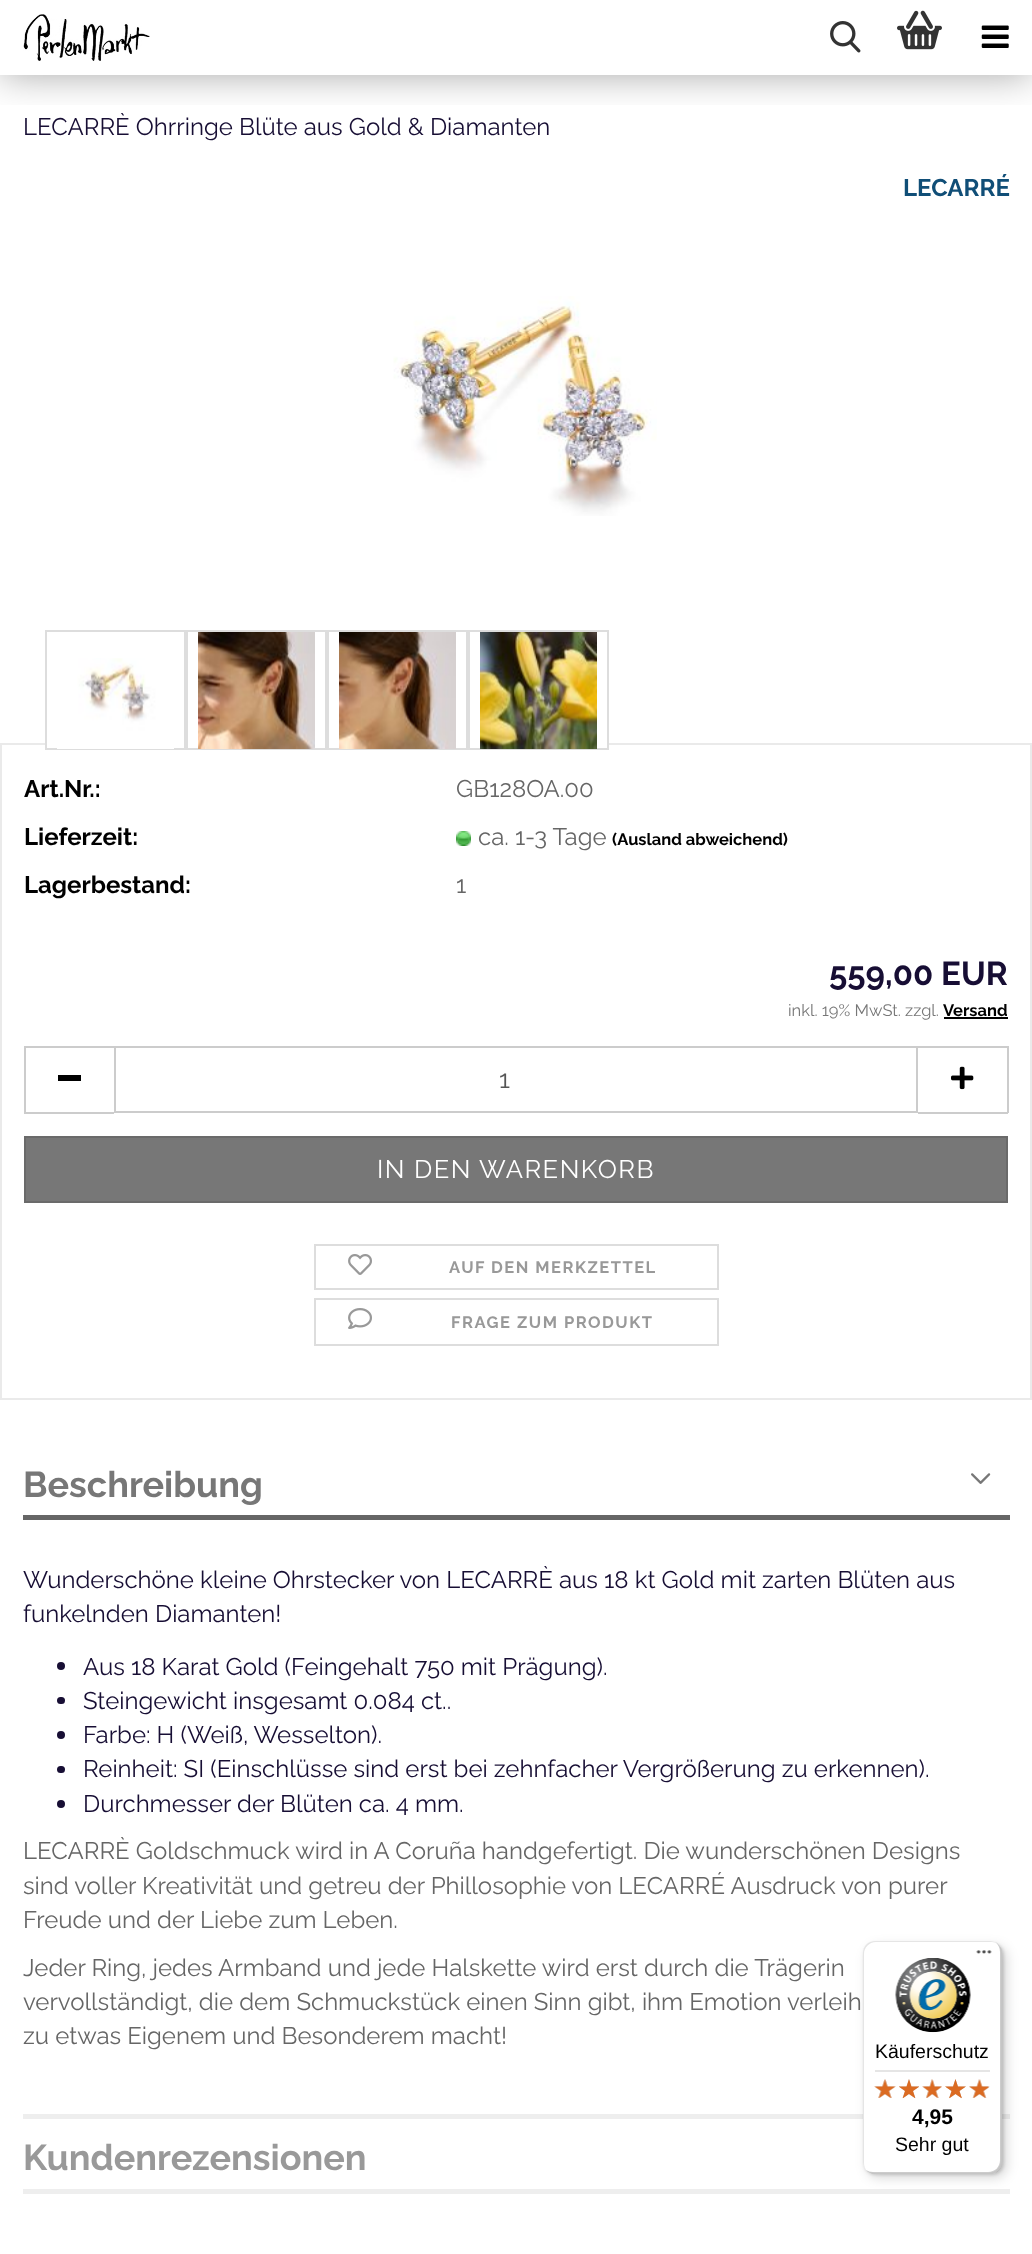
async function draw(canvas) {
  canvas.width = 1032;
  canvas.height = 2254;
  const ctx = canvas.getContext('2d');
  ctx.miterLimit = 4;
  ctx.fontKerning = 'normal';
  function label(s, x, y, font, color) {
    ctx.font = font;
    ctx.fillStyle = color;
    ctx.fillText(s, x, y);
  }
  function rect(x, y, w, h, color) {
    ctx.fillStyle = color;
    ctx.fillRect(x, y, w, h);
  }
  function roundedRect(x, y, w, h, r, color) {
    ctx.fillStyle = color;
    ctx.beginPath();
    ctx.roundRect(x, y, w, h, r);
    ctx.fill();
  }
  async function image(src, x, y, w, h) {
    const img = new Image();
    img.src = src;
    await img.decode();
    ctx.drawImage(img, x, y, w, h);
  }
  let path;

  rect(0, 0, 1032, 2254, '#fff');
  ctx.save();
  ctx.beginPath();
  ctx.rect(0, 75, 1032, 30);
  ctx.clip();
  ctx.fillStyle = '#00000059';
  ctx.filter = 'blur(19px)';
  ctx.beginPath();
  ctx.rect(0, 0, 1032, 75);
  ctx.fill();
  ctx.filter = 'none';
  ctx.restore();
  await image('assets/img1.png', 23, 14, 127, 47);
  await image('assets/img2.png', 830, 21, 31, 32);
  await image('assets/img3.png', 897, 10, 45, 40);
  await image('assets/img4.png', 981, 25, 28, 23);
  label('LECARRÈ Ohrringe Blüte aus Gold & Diamanten', 23, 135, '100 24px Raleway', '#170e34');
  label('LECARRÉ', 903, 196, '100 24px "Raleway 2"', '#104e77');
  await image('assets/img5.png', 393, 296, 264, 220);
  ctx.strokeStyle = '#eaeaea';
  ctx.lineWidth = 2;
  ctx.strokeRect(1, 744, 1030, 655);
  rect(47, 743, 137, 2, '#fff');
  ctx.strokeStyle = '#ddd';
  ctx.strokeRect(46, 631, 139, 118);
  await image('assets/img6.png', 57, 658, 117, 91);
  rect(188, 743, 137, 2, '#fff');
  ctx.strokeRect(187, 631, 139, 118);
  await image('assets/img7.png', 198, 632, 117, 117);
  rect(329, 743, 137, 2, '#fff');
  ctx.strokeRect(328, 631, 139, 118);
  await image('assets/img8.png', 339, 632, 117, 117);
  rect(470, 743, 137, 2, '#fff');
  ctx.strokeRect(469, 631, 139, 118);
  await image('assets/img9.png', 480, 632, 117, 117);
  label('Art.Nr.:', 24, 797, '100 24px "Raleway 2"', '#000');
  label('GB128OA.00', 456, 797, '100 24px Raleway', '#666');
  label('Lieferzeit:', 24, 845, '100 24px "Raleway 2"', '#000');
  await image('assets/img10.png', 456, 831, 15, 15);
  label('ca. 1-3 Tage', 478, 845, '100 24px Raleway', '#666');
  label('(Ausland abweichend)', 612, 845, '100 16.5px "Raleway 2"', '#000');
  label('Lagerbestand:', 24, 893, '100 24px "Raleway 2"', '#000');
  label('1', 456, 893, '100 24px Raleway', '#666');
  label('559,00 EUR', 829, 985, '100 33px "Raleway 2"', '#170e34');
  label('inkl. 19% MwSt. zzgl.', 788, 1016, '100 16.5px Raleway', '#777');
  label('Versand', 943, 1016, '100 16.5px "Raleway 2"', '#000');
  rect(944, 1017, 64, 2, '#000');
  rect(24, 1046, 90, 2, '#ccc');
  rect(24, 1112, 90, 2, '#ccc');
  rect(24, 1046, 2, 67, '#ccc');
  rect(58, 1075, 23, 6, '#000');
  ctx.strokeStyle = '#ccc';
  ctx.strokeRect(115, 1047, 802, 65);
  label('1', 499, 1088, '100 25.5px Raleway', '#555');
  rect(918, 1046, 90, 2, '#ccc');
  rect(1007, 1046, 2, 67, '#ccc');
  rect(918, 1112, 90, 2, '#ccc');
  await image('assets/img11.png', 951, 1066, 23, 24);
  ctx.fillStyle = '#777';
  ctx.beginPath();
  ctx.rect(25, 1137, 982, 65);
  ctx.fill();
  ctx.strokeStyle = '#6a6a6a';
  ctx.stroke();
  ctx.letterSpacing = '1.5px';
  label('IN DEN WARENKORB', 377, 1178, '100 25.5px Raleway', '#fff');
  ctx.strokeStyle = '#ddd';
  ctx.strokeRect(315, 1245, 403, 44);
  await image('assets/img12.png', 348, 1254, 24, 21);
  label('AUF DEN MERKZETTEL', 449, 1273, '100 16.5px "Raleway 2"', '#999');
  ctx.strokeRect(315, 1299, 403, 46);
  await image('assets/img13.png', 348, 1308, 24, 21);
  label('FRAGE ZUM PRODUKT', 451, 1328, '100 16.5px "Raleway 2"', '#999');
  rect(23, 1515, 987, 5, '#666');
  ctx.letterSpacing = '0px';
  label('Beschreibung', 23, 1497, '100 36px "Raleway 2"', '#777');
  await image('assets/img14.png', 971, 1473, 20, 11);
  rect(23, 2114, 987, 5, '#eee');
  label('Wunderschöne kleine Ohrstecker von LECARRÈ aus 18 kt Gold mit zarten Blüten aus', 23, 1588, '100 24px Raleway', '#170e34');
  label('funkelnden Diamanten!', 23, 1622, '100 24px Raleway', '#170e34');
  ctx.beginPath();
  ctx.arc(61, 1666, 4, 0, 2 * Math.PI);
  ctx.fill();
  label('Aus 18 Karat Gold (Feingehalt 750 mit Prägung).', 83, 1675, '100 24px Raleway', '#170e34');
  roundedRect(57, 1697, 8, 7, 3.5, '#170e34');
  label('Steingewicht insgesamt 0.084 ct..', 83, 1709, '100 24px Raleway', '#170e34');
  ctx.beginPath();
  ctx.arc(61, 1735, 4, 0, 2 * Math.PI);
  ctx.fill();
  label('Farbe: H (Weiß, Wesselton).', 83, 1743, '100 24px Raleway', '#170e34');
  roundedRect(57, 1766, 8, 7, 3.5, '#170e34');
  label('Reinheit: SI (Einschlüsse sind erst bei zehnfacher Vergrößerung zu erkennen).', 83, 1777, '100 24px Raleway', '#170e34');
  ctx.beginPath();
  ctx.arc(61, 1804, 4, 0, 2 * Math.PI);
  ctx.fill();
  label('Durchmesser der Blüten ca. 4 mm.', 83, 1812, '100 24px Raleway', '#170e34');
  label('LECARRÈ Goldschmuck wird in A Coruña handgefertigt. Die wunderschönen Designs', 23, 1859, '100 24px Raleway', '#666');
  label('sind voller Kreativität und getreu der Phillosophie von LECARRÉ Ausdruck von purer', 23, 1894, '100 24px Raleway', '#666');
  label('Freude und der Liebe zum Leben.', 23, 1928, '100 24px Raleway', '#666');
  label('Jeder Ring, jedes Armband und jede Halskette wird erst durch die Trägerin', 23, 1976, '100 24px Raleway', '#666');
  label('vervollständigt, die dem Schmuckstück einen Sinn gibt, ihm Emotion verleih', 23, 2010, '100 24px Raleway', '#666');
  label('zu etwas Eigenem und Besonderem macht!', 23, 2044, '100 24px Raleway', '#666');
  rect(23, 2189, 987, 5, '#eee');
  label('Kundenrezensionen', 23, 2170, '100 36px "Raleway 2"', '#999');
  ctx.fillStyle = '#00000026';
  ctx.filter = 'blur(6px)';
  ctx.beginPath();
  ctx.roundRect(867, 1946, 140, 232, 12);
  ctx.fill();
  ctx.filter = 'none';
  ctx.filter = 'blur(1.5px)';
  ctx.beginPath();
  ctx.roundRect(864, 1943, 140, 232, 12);
  ctx.fill();
  ctx.filter = 'none';
  roundedRect(863, 1941, 139, 233, 12, '#fff');
  ctx.fillStyle = '#e5e5e5';
  path = new Path2D('M876 1942H992C994 1942 996 1943 997 1944C995 1942 993 1941 990 1941H875C868 1941 863 1946 863 1953V2162C863 2165 864 2168 866 2170C865 2168 864 2166 864 2163V1954C864 1948 869 1942 876 1942Z');
  ctx.fill(path);
  ctx.fillStyle = '#00000033';
  path = new Path2D('M866 2170C868 2172 871 2174 875 2174H990C997 2174 1002 2169 1002 2162V1953C1002 1948 999 1944 995 1942C998 1944 1000 1948 1000 1952V2160C1000 2167 995 2172 988 2172H873C870 2172 868 2171 866 2170Z');
  ctx.fill(path);
  ctx.fillStyle = '#32323233';
  path = new Path2D('M866 2170C868 2172 871 2174 875 2174H990C997 2174 1002 2169 1002 2162V1953C1002 1950 1001 1947 999 1945C1000 1947 1001 1949 1001 1952V2161C1001 2167 996 2173 989 2173H874C871 2173 868 2172 866 2170Z');
  ctx.fill(path);
  ctx.fillStyle = '#ffffff4d';
  path = new Path2D('M866 2170C868 2172 871 2174 875 2174H990C997 2174 1002 2169 1002 2162V1953C1002 1949 1000 1946 998 1944C1000 1946 1001 1949 1001 1952V2161C1001 2167 996 2173 989 2173H874C871 2173 868 2172 866 2170Z');
  ctx.fill(path);
  await image('assets/img15.png', 976, 1950, 16, 4);
  await image('assets/img16.png', 895, 1958, 76, 75);
  label('Käuferschutz', 875, 2058, '19.5px Liberation Sans', '#000');
  rect(875, 2070, 115, 2, '#e5e5e5');
  await image('assets/img17.png', 874, 2079, 22, 19);
  await image('assets/img18.png', 899, 2079, 20, 19);
  await image('assets/img19.png', 922, 2079, 20, 19);
  await image('assets/img20.png', 945, 2079, 21, 19);
  await image('assets/img21.png', 969, 2079, 21, 19);
  await image('assets/img22.png', 874, 2079, 22, 19);
  await image('assets/img23.png', 899, 2079, 20, 20);
  await image('assets/img24.png', 922, 2079, 20, 19);
  await image('assets/img25.png', 945, 2079, 21, 20);
  await image('assets/img26.png', 969, 2079, 20, 19);
  label('4,95', 912, 2124, 'bold 21px Liberation Sans', '#000');
  label('Sehr gut', 895, 2151, '19.5px Liberation Sans', '#000');
}

draw(document.querySelector('canvas'));
